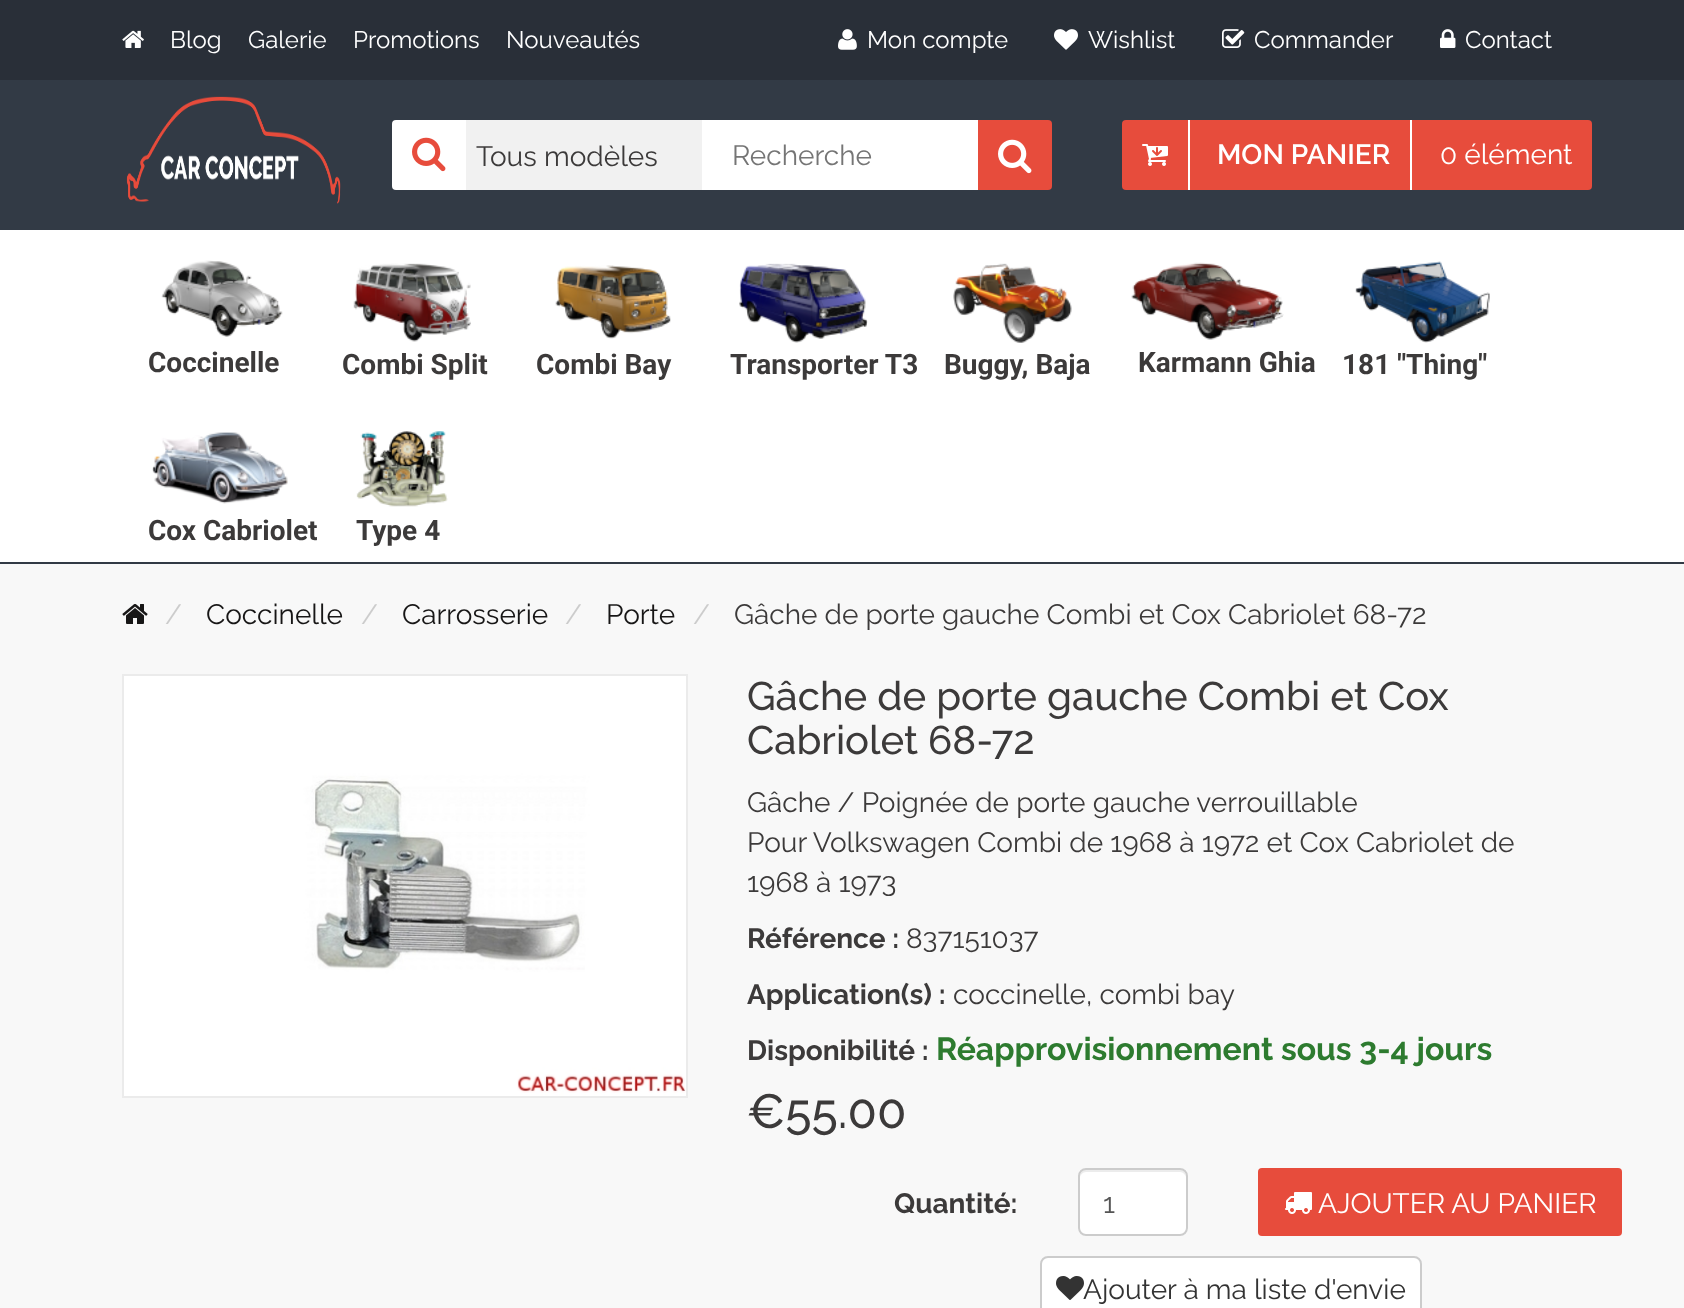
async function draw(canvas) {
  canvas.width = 1684;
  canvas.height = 1308;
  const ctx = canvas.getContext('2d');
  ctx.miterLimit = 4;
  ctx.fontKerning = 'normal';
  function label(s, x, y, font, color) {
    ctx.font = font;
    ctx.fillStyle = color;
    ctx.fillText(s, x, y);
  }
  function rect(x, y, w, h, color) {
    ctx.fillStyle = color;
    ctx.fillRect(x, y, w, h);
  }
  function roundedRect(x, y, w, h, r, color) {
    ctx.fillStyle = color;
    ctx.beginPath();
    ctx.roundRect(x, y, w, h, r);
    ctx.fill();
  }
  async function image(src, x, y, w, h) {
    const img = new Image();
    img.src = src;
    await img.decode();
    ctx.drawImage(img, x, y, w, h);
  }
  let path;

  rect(0, 0, 1684, 1308, '#f8f8f8');
  rect(0, 0, 1684, 80, '#292f38');
  await image('assets/img1.png', 122, 30, 22, 18);
  label('Blog', 170, 48, '24px Raleway', '#fff');
  label('Galerie', 248, 48, '24px Raleway', '#fff');
  label('Promotions', 353, 48, '24px Raleway', '#fff');
  label('Nouveautés', 506, 48, '24px Raleway', '#fff');
  await image('assets/img2.png', 838, 29, 19, 21);
  label('Mon compte', 867, 48, '24px Raleway', '#fff');
  await image('assets/img3.png', 1054, 29, 24, 21);
  label('Wishlist', 1088, 48, '24px Raleway', '#fff');
  await image('assets/img4.png', 1222, 29, 23, 19);
  label('Commander', 1254, 48, '24px Raleway', '#fff');
  await image('assets/img5.png', 1440, 29, 16, 19);
  label('Contact', 1465, 48, '24px Raleway', '#fff');
  rect(0, 80, 1684, 150, '#323a45');
  await image('assets/img6.png', 126, 96, 215, 108);
  ctx.fillStyle = '#fff';
  ctx.beginPath();
  ctx.roundRect(392, 120, 74, 70, [4, 0, 0, 4]);
  ctx.fill();
  await image('assets/img7.png', 412, 137, 34, 35);
  rect(466, 120, 236, 70, '#f1f1f1');
  label('Tous modèles', 476, 166, '28px Raleway', '#3c3a3a');
  rect(702, 120, 276, 70, '#fff');
  label('Recherche', 732, 165, '28px Raleway', '#757575');
  ctx.fillStyle = '#e74c3c';
  ctx.beginPath();
  ctx.roundRect(978, 120, 74, 70, [0, 4, 4, 0]);
  ctx.fill();
  await image('assets/img8.png', 998, 139, 34, 35);
  roundedRect(1122, 120, 470, 70, 4, '#e74c3c');
  rect(1188, 120, 2, 70, '#fff');
  await image('assets/img9.png', 1142, 144, 26, 22);
  rect(1410, 120, 2, 70, '#fff');
  label('MON PANIER', 1217, 164, '600 28px Raleway', '#fff');
  label('0 élément', 1440, 164, '28px Raleway', '#fff');
  rect(0, 230, 1684, 332, '#fff');
  rect(0, 562, 1684, 2, '#323a45');
  await image('assets/img10.png', 161, 260, 122, 77);
  label('Coccinelle', 148, 372, 'bold 28px Roboto', '#3c3a3a');
  await image('assets/img11.png', 353, 263, 118, 79);
  label('Combi Split', 342, 374, 'bold 28px Roboto', '#3c3a3a');
  await image('assets/img12.png', 555, 265, 116, 74);
  label('Combi Bay', 536, 374, 'bold 28px Roboto', '#3c3a3a');
  await image('assets/img13.png', 739, 263, 129, 80);
  label('Transporter T3', 730, 374, 'bold 28px Roboto', '#3c3a3a');
  await image('assets/img14.png', 953, 263, 119, 80);
  label('Buggy, Baja', 944, 374, 'bold 28px Roboto', '#3c3a3a');
  await image('assets/img15.png', 1131, 262, 153, 78);
  label('Karmann Ghia', 1138, 372, 'bold 28px Roboto', '#3c3a3a');
  await image('assets/img16.png', 1355, 261, 135, 82);
  label('181 "Thing"', 1342, 374, 'bold 28px Roboto', '#3c3a3a');
  await image('assets/img17.png', 152, 432, 136, 72);
  label('Cox Cabriolet', 148, 540, 'bold 28px Roboto', '#3c3a3a');
  await image('assets/img18.png', 356, 431, 92, 76);
  label('Type 4', 356, 540, 'bold 28px Roboto', '#3c3a3a');
  await image('assets/img19.png', 122, 604, 26, 20);
  label('/', 165, 624, '28px Raleway', '#ccc');
  label('Coccinelle', 206, 624, '28px Raleway', '#171616');
  label('/', 361, 624, '28px Raleway', '#ccc');
  label('Carrosserie', 402, 624, '28px Raleway', '#171616');
  label('/', 565, 624, '28px Raleway', '#ccc');
  label('Porte', 606, 624, '28px Raleway', '#171616');
  label('/', 693, 624, '28px Raleway', '#ccc');
  label('Gâche de porte gauche Combi et Cox Cabriolet 68-72', 734, 624, '28px Raleway', '#3c3a3a');
  ctx.strokeStyle = '#ebebeb';
  ctx.lineWidth = 2;
  ctx.strokeRect(123, 675, 564, 422);
  await image('assets/img20.png', 124, 676, 562, 420);
  label('Gâche de porte gauche Combi et Cox', 747, 710, '500 40px Raleway', '#3c3a3a');
  label('Cabriolet 68-72', 747, 754, '500 40px Raleway', '#3c3a3a');
  label('Gâche / Poignée de porte gauche verrouillable', 747, 812, '28px Raleway', '#3c3a3a');
  label('Pour Volkswagen Combi de 1968 à 1972 et Cox Cabriolet de', 747, 852, '28px Raleway', '#3c3a3a');
  label('1968 à 1973', 747, 892, '28px Raleway', '#3c3a3a');
  label('Référence :', 747, 948, 'bold 28px Raleway', '#3c3a3a');
  label('837151037', 906, 948, '28px Raleway', '#3c3a3a');
  label('Application(s) :', 747, 1004, 'bold 28px Raleway', '#3c3a3a');
  label('coccinelle, combi bay', 953, 1004, '28px Raleway', '#3c3a3a');
  label('Disponibilité :', 747, 1060, 'bold 28px Raleway', '#3c3a3a');
  label('Réapprovisionnement sous 3-4 jours', 936, 1060, 'bold 32px Raleway', '#2d7b2f');
  label('€55.00', 747, 1128, '500 48px Raleway', '#3c3a3a');
  label('Quantité:', 894, 1213, 'bold 28px Raleway', '#3c3a3a');
  roundedRect(1078, 1168, 110, 68, 8, '#fff');
  ctx.fillStyle = '#ececec';
  path = new Path2D('M1086 1172H1180C1183 1172 1186 1175 1186 1178C1186 1166 1174 1170 1164 1170H1102C1092 1170 1080 1166 1080 1178C1080 1175 1083 1172 1086 1172Z');
  ctx.fill(path);
  ctx.beginPath();
  ctx.roundRect(1079, 1169, 108, 66, 7);
  ctx.strokeStyle = '#ccc';
  ctx.stroke();
  label('1', 1103, 1213, '28px Raleway', '#555');
  roundedRect(1258, 1168, 364, 68, 4, '#e74c3c');
  await image('assets/img21.png', 1285, 1192, 27, 22);
  label('AJOUTER AU PANIER', 1318, 1213, '28px Raleway', '#fff');
  ctx.beginPath();
  ctx.roundRect(1041, 1257, 380, 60, 7);
  ctx.fill();
  ctx.stroke();
  await image('assets/img22.png', 1056, 1276, 28, 24);
  label('Ajouter à ma liste d\'envie', 1083, 1299, '28px Raleway', '#333');
}

draw(document.querySelector('canvas'));
